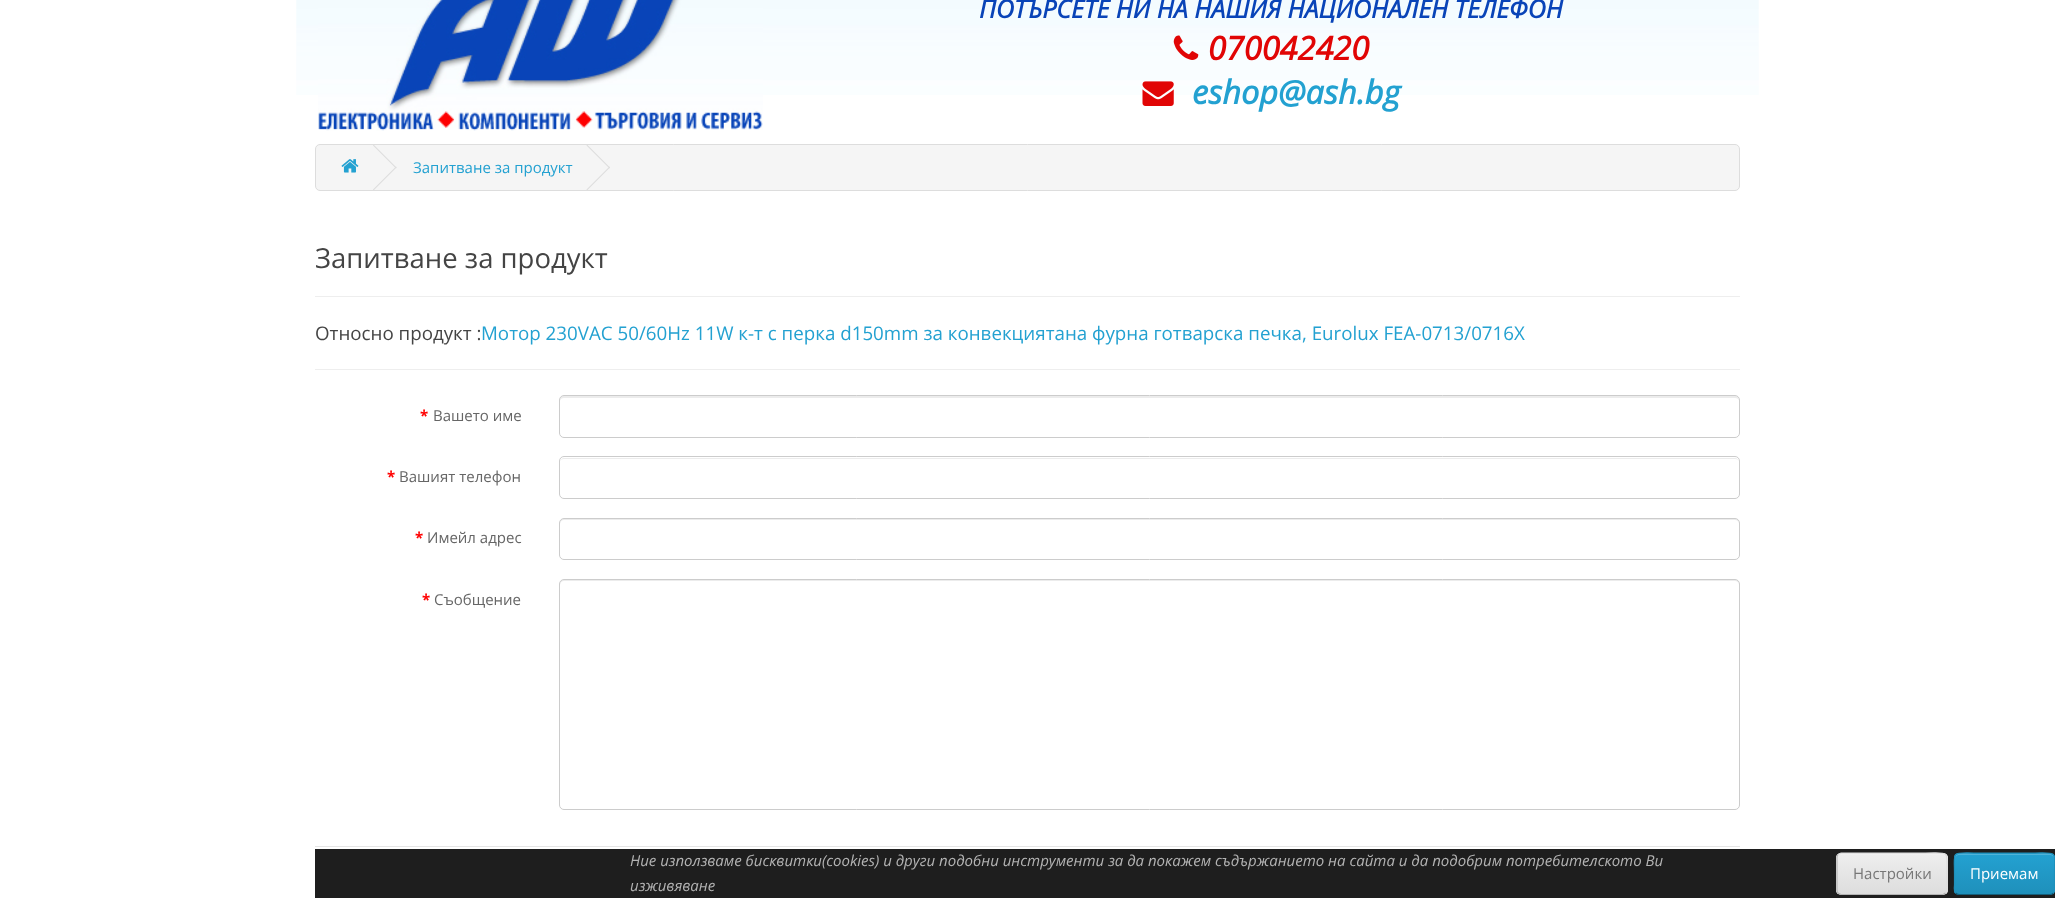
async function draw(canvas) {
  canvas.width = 2055;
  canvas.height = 898;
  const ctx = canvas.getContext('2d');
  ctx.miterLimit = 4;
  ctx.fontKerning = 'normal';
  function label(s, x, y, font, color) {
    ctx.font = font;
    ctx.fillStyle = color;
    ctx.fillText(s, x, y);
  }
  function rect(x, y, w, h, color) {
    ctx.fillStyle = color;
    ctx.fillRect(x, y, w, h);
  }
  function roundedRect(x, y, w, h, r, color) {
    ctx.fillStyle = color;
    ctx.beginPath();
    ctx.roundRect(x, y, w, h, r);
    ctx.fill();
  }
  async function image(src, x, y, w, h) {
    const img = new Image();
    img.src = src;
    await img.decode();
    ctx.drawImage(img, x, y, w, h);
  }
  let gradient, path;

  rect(0, 0, 2055, 898, '#fff');
  await image('assets/img1.png', 296, 0, 1463, 95);
  await image('assets/img2.png', 318, 0, 445, 131);
  label('ПОТЪРСЕТЕ НИ НА НАШИЯ НАЦИОНАЛЕН ТЕЛЕФОН', 979, 18, 'italic bold 25px Open Sans', '#0944b8');
  await image('assets/img3.png', 1173, 35, 26, 25);
  label('070042420', 1208, 60, 'italic bold 32.5px Open Sans', '#e10505');
  await image('assets/img4.png', 1142, 81, 32, 25);
  label('eshop@ash.bg', 1192, 104, 'italic bold 32.5px Open Sans', '#23a1d1');
  ctx.fillStyle = '#f5f5f5';
  ctx.beginPath();
  ctx.roundRect(315.5, 144.5, 1424, 46, 4.5);
  ctx.fill();
  ctx.strokeStyle = '#ddd';
  ctx.stroke();
  await image('assets/img5.png', 341, 159, 18, 14);
  ctx.fillStyle = '#ddd';
  path = new Path2D('M373 145.5L373.5 144.5L396.5 167.5L396 168.5Z');
  ctx.fill(path);
  path = new Path2D('M373 189.5L396 166.5L396.5 167.5L373.5 190.5Z');
  ctx.fill(path);
  label('Запитване за продукт', 413, 173, '15px Open Sans', '#23a1d1');
  ctx.fillStyle = '#ddd';
  path = new Path2D('M586.5 145.5L587 144.5L610 167.5L609.5 168.5Z');
  ctx.fill(path);
  path = new Path2D('M586.5 189.5L609.5 166.5L610 167.5L587 190.5Z');
  ctx.fill(path);
  label('Запитване за продукт', 315, 268, '27.5px Open Sans', '#444');
  rect(315, 296, 1425, 1, '#eee');
  label('Относно продукт :', 315, 340, '18.75px Open Sans', '#444');
  label('Мотор 230VAC 50/60Hz 11W к-т с перка d150mm за конвекциятана фурна готварска печка, Eurolux FEA-0713/0716X', 481, 340, '18.75px Open Sans', '#23a1d1');
  rect(315, 369, 1425, 1, '#eee');
  label('*', 420, 421, 'bold 15px Open Sans', '#f00');
  label('Вашето име', 433, 421, '15px Open Sans', '#666');
  ctx.fillStyle = '#ececec';
  path = new Path2D('M564 398H1735C1737 398 1739 399 1739 401C1739 398 1738 396 1735 396H564C561 396 560 398 560 401C560 399 562 398 564 398Z');
  ctx.fill(path);
  ctx.beginPath();
  ctx.roundRect(559.5, 395.5, 1180, 42, 4.5);
  ctx.strokeStyle = '#ccc';
  ctx.stroke();
  label('*', 387, 482, 'bold 15px Open Sans', '#f00');
  label('Вашият телефон', 399, 482, '15px Open Sans', '#666');
  ctx.fillStyle = '#ececec';
  path = new Path2D('M564 459H1735C1737 459 1739 460 1739 462C1739 460 1737 458 1735 458H564C562 458 560 460 560 462C560 460 562 459 564 459Z');
  ctx.fill(path);
  ctx.beginPath();
  ctx.roundRect(559.5, 456.5, 1180, 42, 4.5);
  ctx.stroke();
  label('*', 415, 543, 'bold 15px Open Sans', '#f00');
  label('Имейл адрес', 427, 543, '15px Open Sans', '#666');
  ctx.fillStyle = '#ececec';
  path = new Path2D('M564 520H1735C1737 520 1739 522 1739 524C1739 521 1738 519 1735 519H564C561 519 560 521 560 524C560 522 562 520 564 520Z');
  ctx.fill(path);
  ctx.beginPath();
  ctx.roundRect(559.5, 518.5, 1180, 41, 4.5);
  ctx.stroke();
  label('*', 422, 605, 'bold 15px Open Sans', '#f00');
  label('Съобщение', 434, 605, '15px Open Sans', '#666');
  ctx.fillStyle = '#ececec';
  path = new Path2D('M564 581H1735C1737 581 1739 583 1739 585C1739 582 1738 580 1735 580H564C561 580 560 582 560 585C560 583 562 581 564 581Z');
  ctx.fill(path);
  ctx.beginPath();
  ctx.roundRect(559.5, 579.5, 1180, 230, 4.5);
  ctx.stroke();
  rect(315, 846, 1425, 1, '#e5e5e5');
  rect(315, 849, 1740, 49, '#1e1e1e');
  label('Ние използваме бисквитки(cookies) и други подобни инструменти за да покажем съдържанието на сайта и да подобрим потребителското Ви', 630, 866, 'italic 15px Open Sans', '#b3b3b3');
  label('изживяване', 630, 891, 'italic 15px Open Sans', '#b3b3b3');
  roundedRect(1836, 853, 112, 42, 5, '#e7e7e7');
  ctx.save();
  ctx.beginPath();
  ctx.roundRect(1836, 853, 112, 42, 5);
  ctx.clip();
  gradient = ctx.createLinearGradient(1892, 854, 1892, 894);
  gradient.addColorStop(0, '#eee');
  gradient.addColorStop(1, '#ddd');
  ctx.fillStyle = gradient;
  ctx.fillRect(1836, 854, 112, 40);
  ctx.restore();
  ctx.fillStyle = '#ffffff33';
  path = new Path2D('M1841 855H1942C1945 855 1946 857 1946 859C1946 850 1929 854 1925 854H1859C1855 854 1838 850 1838 859C1838 857 1839 855 1841 855Z');
  ctx.fill(path);
  path = new Path2D('M1838 854.5L1841 853H1925.5C1950.5 853 1947 849.5 1947 874V884.5C1947 887 1947.5 891 1945.5 893');
  ctx.strokeStyle = '#ddd';
  ctx.lineWidth = 1.2;
  ctx.stroke(path);
  path = new Path2D('M1945.5 893L1943 894.5H1841L1838 893');
  ctx.strokeStyle = '#b3b3b3';
  ctx.stroke(path);
  path = new Path2D('M1838 893C1837.5 892.5 1837 891 1837 890V857.5C1837 856.5 1837.5 855 1838 854.5');
  ctx.strokeStyle = '#b7b7b7';
  ctx.stroke(path);
  label('Настройки', 1853, 879, '15px Open Sans', '#777');
  roundedRect(1954, 853, 101, 42, 5, '#229ac8');
  ctx.save();
  ctx.beginPath();
  ctx.roundRect(1954, 853, 101, 42, 5);
  ctx.clip();
  gradient = ctx.createLinearGradient(2004, 854, 2004, 894);
  gradient.addColorStop(0, '#23a1d1');
  gradient.addColorStop(1, '#1f90bb');
  ctx.fillStyle = gradient;
  ctx.fillRect(1954, 854, 101, 40);
  ctx.restore();
  ctx.fillStyle = '#ffffff33';
  path = new Path2D('M1959 855H2050C2052 855 2054 857 2054 859C2054 850 2039 854 2035 854H1974C1970 854 1955 850 1955 859C1955 857 1957 855 1959 855Z');
  ctx.fill(path);
  path = new Path2D('M2053 893C2052.5 894 2051 894.5 2050 894.5H1959C1957.5 894.5 1956.5 894 1955.5 893');
  ctx.strokeStyle = '#145e7a';
  ctx.stroke(path);
  path = new Path2D('M1955.5 893C1953.5 891 1954.5 887 1954.5 884.5V874C1954.5 850.5 1950.5 853 1974 853H2035C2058.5 853 2054.5 850.5 2054.5 874V884.5C2054.5 887 2055 891 2053 893');
  ctx.strokeStyle = '#1f90bb';
  ctx.stroke(path);
  label('Приемам', 1970, 879, '15px Open Sans', '#fff');
}

draw(document.querySelector('canvas'));
